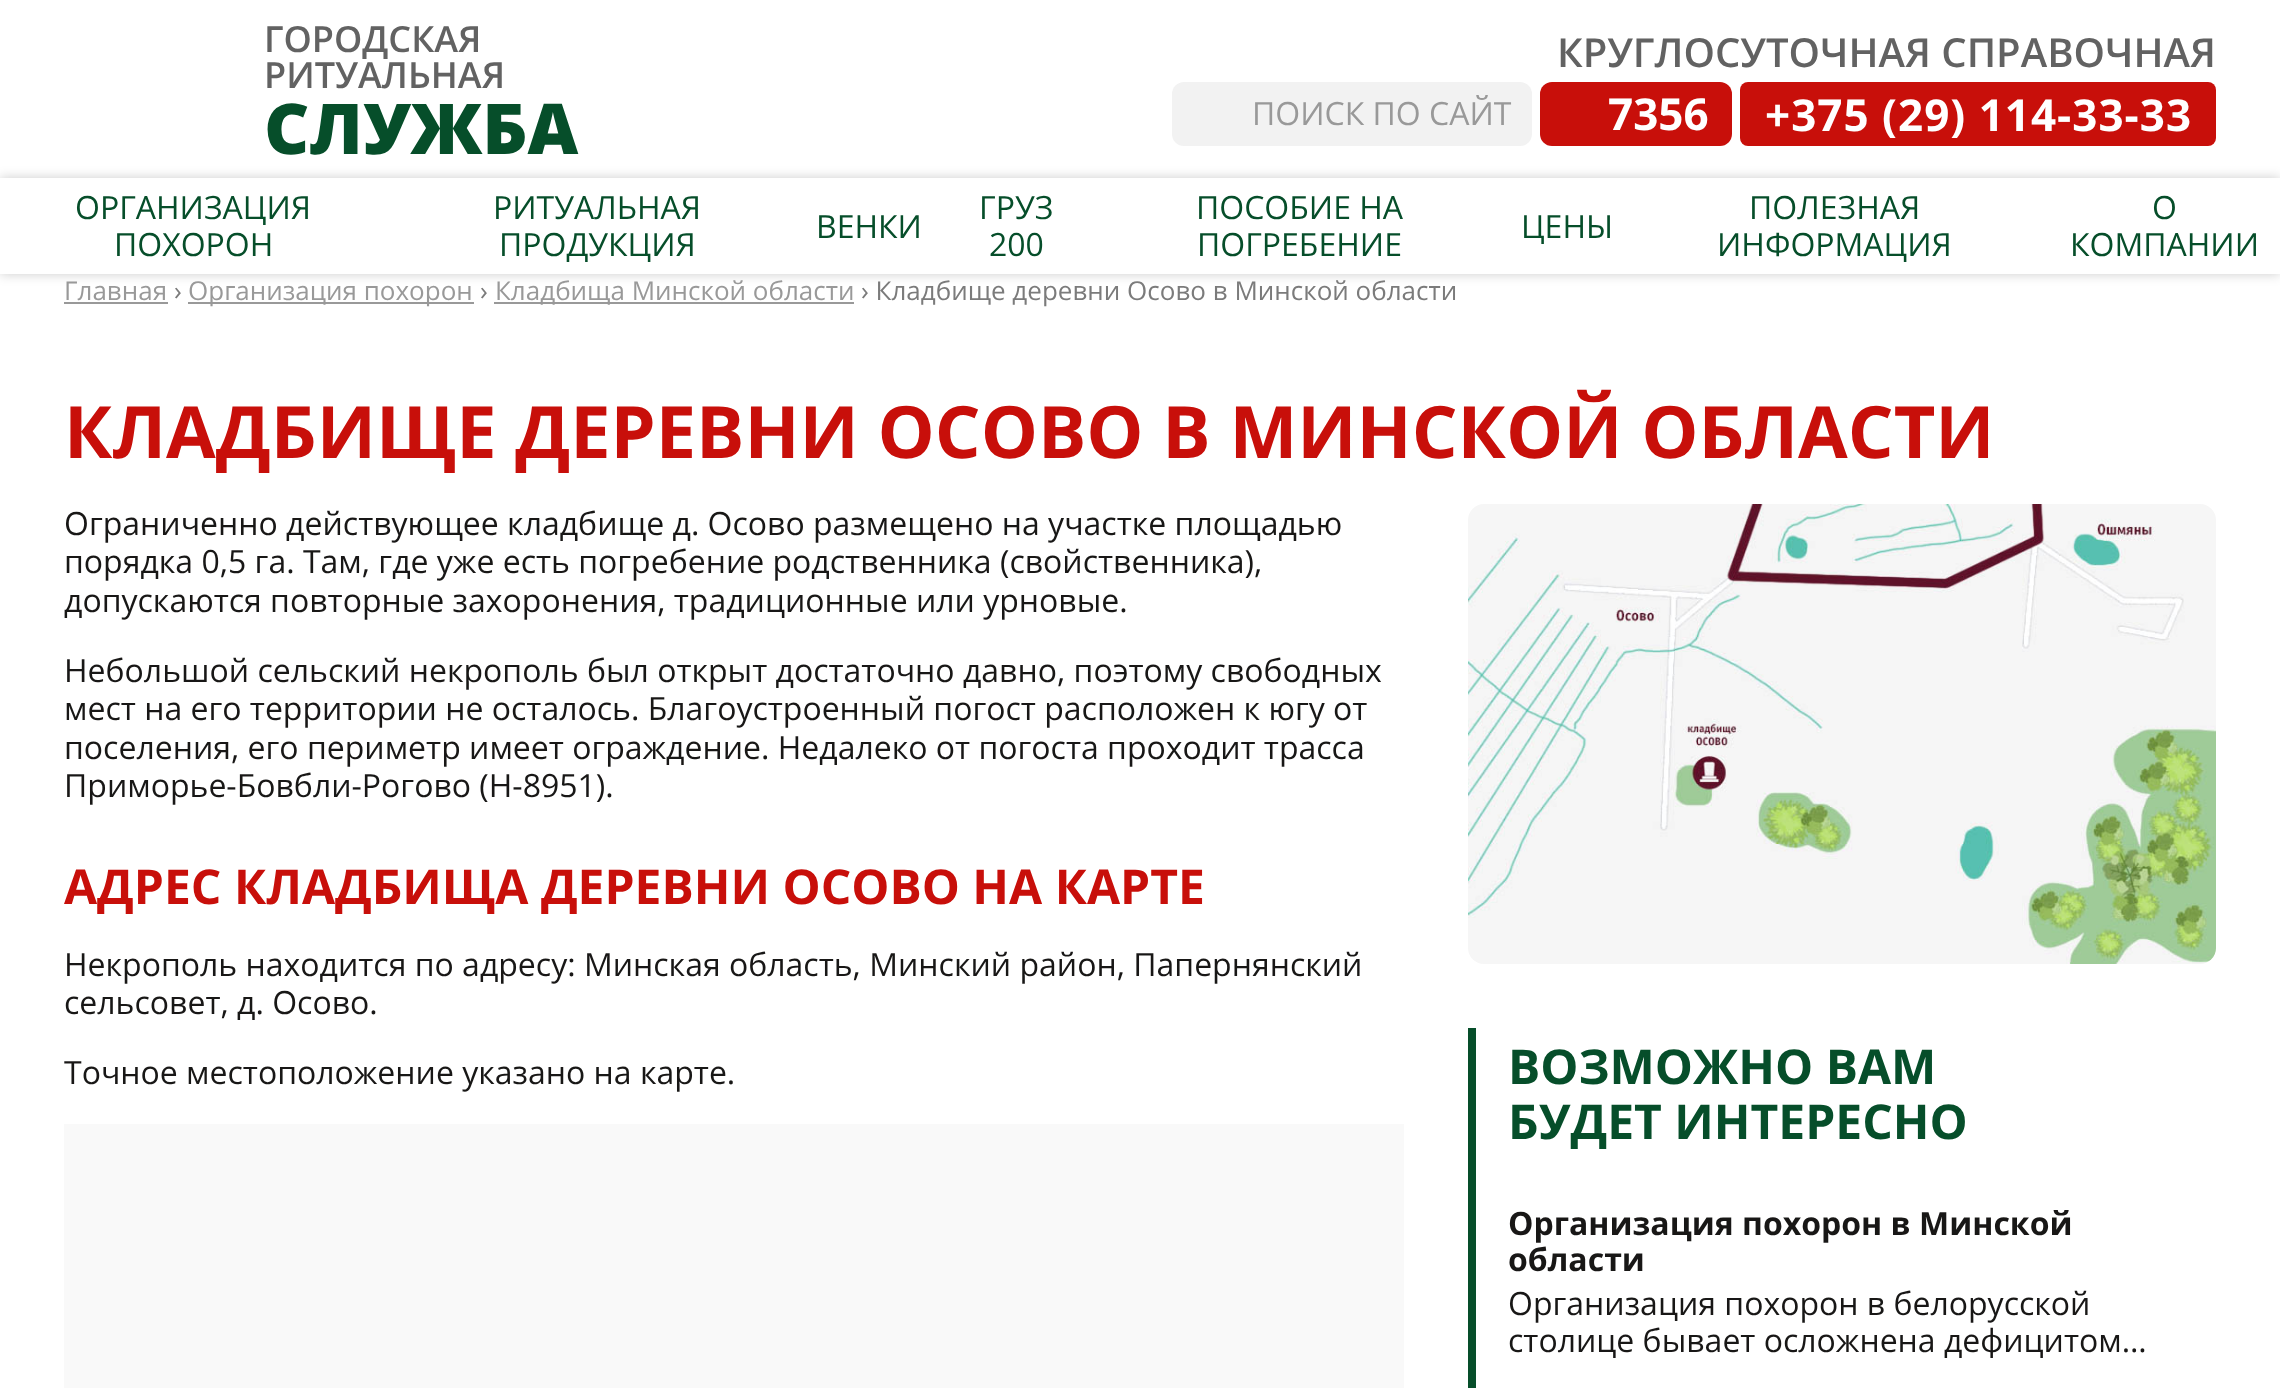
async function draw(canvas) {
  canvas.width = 2280;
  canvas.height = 1388;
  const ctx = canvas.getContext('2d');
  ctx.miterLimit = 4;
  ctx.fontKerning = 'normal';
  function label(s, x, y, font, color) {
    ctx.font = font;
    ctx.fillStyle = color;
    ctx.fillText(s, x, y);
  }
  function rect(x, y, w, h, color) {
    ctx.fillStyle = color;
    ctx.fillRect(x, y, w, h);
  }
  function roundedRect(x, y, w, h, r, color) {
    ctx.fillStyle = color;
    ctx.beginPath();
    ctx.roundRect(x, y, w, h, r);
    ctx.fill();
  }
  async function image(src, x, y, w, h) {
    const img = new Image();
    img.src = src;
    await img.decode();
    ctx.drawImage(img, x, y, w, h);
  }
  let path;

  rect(0, 0, 2280, 1388, '#fff');
  label('ГОРОДСКАЯ', 264, 52, '600 36px Open Sans', '#626262');
  label('РИТУАЛЬНАЯ', 264, 88, '600 36px Open Sans', '#626262');
  label('СЛУЖБА', 264, 154, '800 70px Open Sans', '#064e2a');
  label('КРУГЛОСУТОЧНАЯ СПРАВОЧНАЯ', 1557, 67, '600 40px Open Sans', '#626262');
  roundedRect(1172, 82, 360, 64, 12, '#f2f2f2');
  label('ПОИСК ПО САЙТ', 1252, 125, '32px Open Sans', '#999');
  roundedRect(1540, 82, 192, 64, 12, '#c80f0a');
  label('7356', 1608, 130, 'bold 44px Open Sans', '#fff');
  roundedRect(1740, 82, 476, 64, 8, '#c80f0a');
  ctx.letterSpacing = '1px';
  label('+375 (29) 114-33-33', 1765, 131, 'bold 44px Open Sans', '#fff');
  ctx.save();
  path = new Path2D('M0 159H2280V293H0ZM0 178H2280V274H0Z');
  ctx.clip(path, 'evenodd');
  ctx.fillStyle = '#00000033';
  ctx.filter = 'blur(6px)';
  ctx.beginPath();
  ctx.rect(0, 178, 2280, 96);
  ctx.fill();
  ctx.filter = 'none';
  ctx.restore();
  ctx.letterSpacing = '0px';
  label('ОРГАНИЗАЦИЯ', 75, 219, '32px Open Sans', '#064e2a');
  label('ПОХОРОН', 114, 256, '32px Open Sans', '#064e2a');
  label('РИТУАЛЬНАЯ', 493, 219, '32px Open Sans', '#064e2a');
  label('ПРОДУКЦИЯ', 499, 256, '32px Open Sans', '#064e2a');
  label('ВЕНКИ', 816, 238, '32px Open Sans', '#064e2a');
  label('ГРУЗ', 979, 219, '32px Open Sans', '#064e2a');
  label('200', 989, 256, '32px Open Sans', '#064e2a');
  label('ПОСОБИЕ НА', 1196, 219, '32px Open Sans', '#064e2a');
  label('ПОГРЕБЕНИЕ', 1197, 256, '32px Open Sans', '#064e2a');
  label('ЦЕНЫ', 1521, 238, '32px Open Sans', '#064e2a');
  label('ПОЛЕЗНАЯ', 1749, 219, '32px Open Sans', '#064e2a');
  label('ИНФОРМАЦИЯ', 1717, 256, '32px Open Sans', '#064e2a');
  label('О', 2152, 219, '32px Open Sans', '#064e2a');
  label('КОМПАНИИ', 2070, 256, '32px Open Sans', '#064e2a');
  label('Главная', 64, 300, '26px Open Sans', '#999');
  rect(64, 302, 104, 2, '#999');
  label('›', 174, 300, '26px Open Sans', '#7b7b7b');
  rect(188, 302, 286, 2, '#999');
  label('Организация похорон', 188, 300, '26px Open Sans', '#999');
  label('›', 480, 300, '26px Open Sans', '#7b7b7b');
  rect(494, 302, 360, 2, '#999');
  label('Кладбища Минской области', 495, 300, '26px Open Sans', '#999');
  label('› Кладбище деревни Осово в Минской области', 861, 300, '26px Open Sans', '#7b7b7b');
  label('КЛАДБИЩЕ ДЕРЕВНИ ОСОВО В МИНСКОЙ ОБЛАСТИ', 64, 458, 'bold 72px Open Sans', '#c80f0a');
  label('Ограниченно действующее кладбище д. Осово размещено на участке площадью', 64, 535, '32px Open Sans', '#181716');
  label('порядка 0,5 га. Там, где уже есть погребение родственника (свойственника),', 64, 573, '32px Open Sans', '#181716');
  label('допускаются повторные захоронения, традиционные или урновые.', 64, 612, '32px Open Sans', '#181716');
  label('Небольшой сельский некрополь был открыт достаточно давно, поэтому свободных', 64, 682, '32px Open Sans', '#181716');
  label('мест на его территории не осталось. Благоустроенный погост расположен к югу от', 64, 720, '32px Open Sans', '#181716');
  label('поселения, его периметр имеет ограждение. Недалеко от погоста проходит трасса', 64, 759, '32px Open Sans', '#181716');
  label('Приморье-Бовбли-Рогово (Н-8951).', 64, 797, '32px Open Sans', '#181716');
  label('АДРЕС КЛАДБИЩА ДЕРЕВНИ ОСОВО НА КАРТЕ', 64, 904, 'bold 48px Open Sans', '#c80f0a');
  label('Некрополь находится по адресу: Минская область, Минский район, Папернянский', 64, 976, '32px Open Sans', '#181716');
  label('сельсовет, д. Осово.', 64, 1014, '32px Open Sans', '#181716');
  label('Точное местоположение указано на карте.', 64, 1084, '32px Open Sans', '#181716');
  rect(64, 1124, 1340, 264, '#f9f9f9');
  await image('assets/img1.png', 1468, 504, 748, 460);
  rect(1468, 1028, 8, 360, '#064e2a');
  label('ВОЗМОЖНО ВАМ', 1508, 1084, 'bold 48px Open Sans', '#064e2a');
  label('БУДЕТ ИНТЕРЕСНО', 1508, 1139, 'bold 48px Open Sans', '#064e2a');
  label('Организация похорон в Минской', 1508, 1235, 'bold 32px Open Sans', '#181716');
  label('области', 1508, 1271, 'bold 32px Open Sans', '#181716');
  label('Организация похорон в белорусской', 1508, 1315, '32px Open Sans', '#181716');
  ctx.save();
  ctx.beginPath();
  ctx.rect(1508, 1284, 676, 74);
  ctx.clip();
  label('столице бывает осложнена дефицитом…', 1508, 1352, '32px Open Sans', '#181716');
  ctx.restore();
}

draw(document.querySelector('canvas'));
